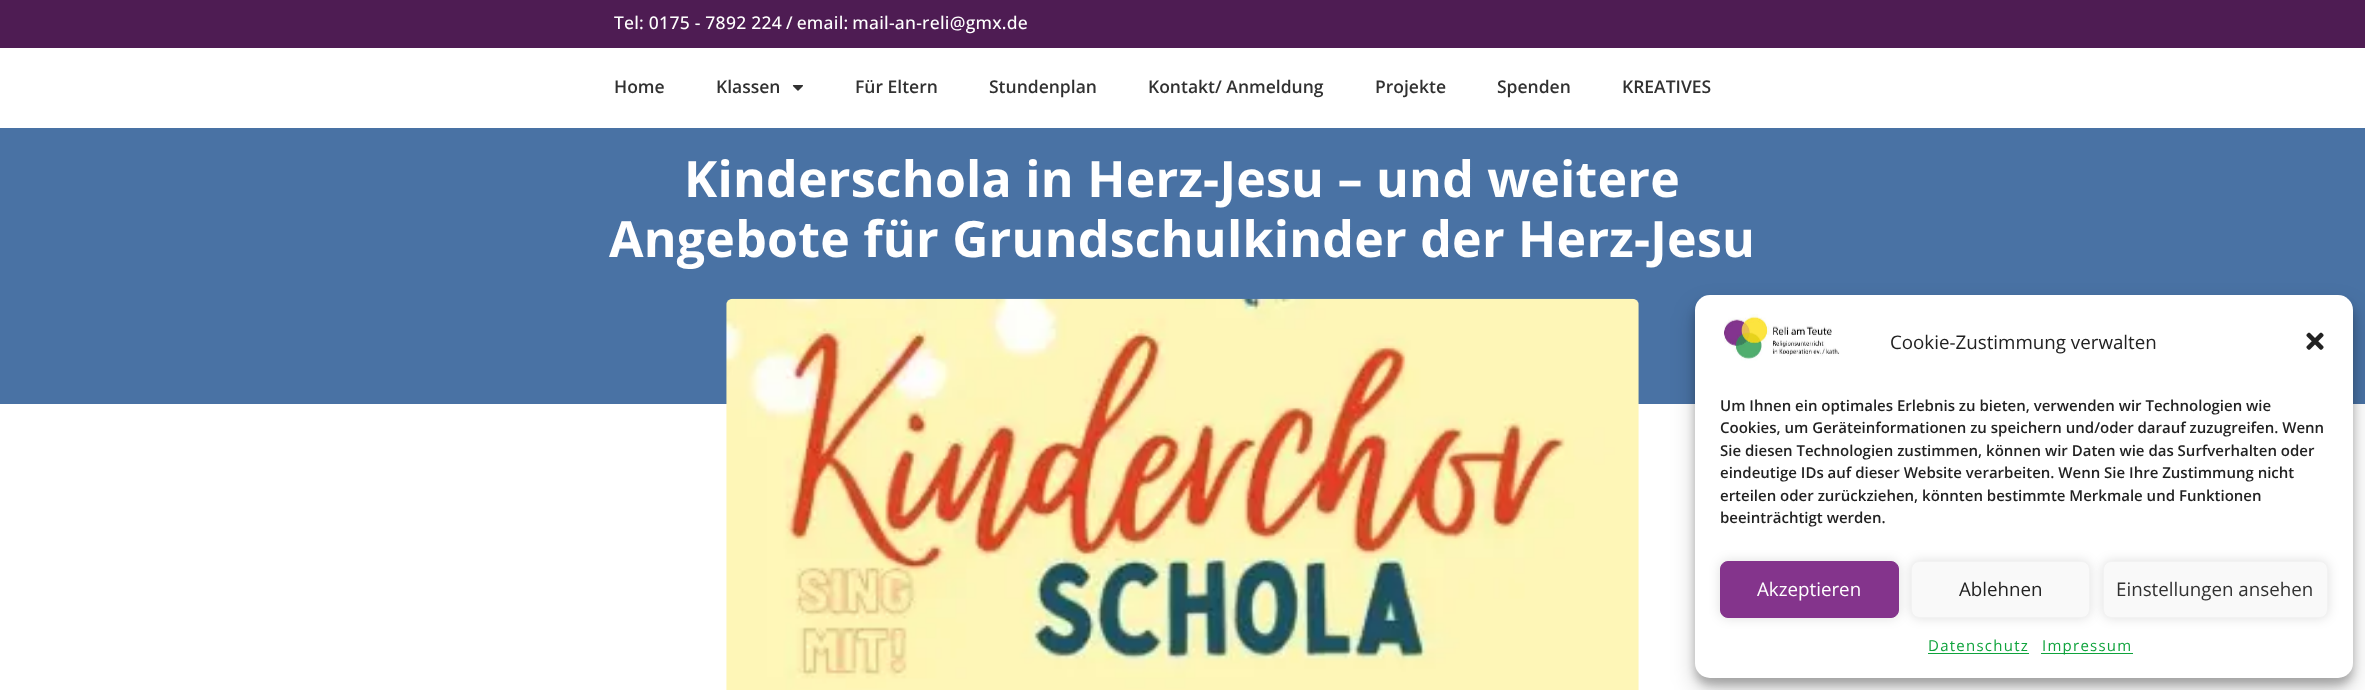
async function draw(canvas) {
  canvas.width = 2365;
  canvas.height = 690;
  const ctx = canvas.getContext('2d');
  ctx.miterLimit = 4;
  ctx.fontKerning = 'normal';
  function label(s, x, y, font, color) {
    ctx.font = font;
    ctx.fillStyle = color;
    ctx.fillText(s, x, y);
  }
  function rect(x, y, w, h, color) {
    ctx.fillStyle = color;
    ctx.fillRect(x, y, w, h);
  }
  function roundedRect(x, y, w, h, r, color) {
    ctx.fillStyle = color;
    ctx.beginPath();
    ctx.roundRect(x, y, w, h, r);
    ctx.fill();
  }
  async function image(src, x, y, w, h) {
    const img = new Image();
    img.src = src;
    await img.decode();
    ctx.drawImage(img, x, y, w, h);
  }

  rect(0, 0, 2365, 690, '#fff');
  rect(0, 0, 2365, 48, '#4e1c53');
  ctx.letterSpacing = '0.25px';
  label('Tel: 0175 - 7892 224', 614, 29, '500 17.5px Open Sans', '#fff');
  ctx.wordSpacing = '-1px';
  label('/ email: mail-an-reli@gmx.de', 786, 29, '500 17.5px Open Sans', '#fff');
  ctx.letterSpacing = '0px';
  ctx.wordSpacing = '0px';
  label('Home', 614, 93, '600 17.5px Open Sans', '#313131');
  label('Klassen', 716, 93, '600 17.5px Open Sans', '#313131');
  await image('assets/img1.png', 792, 85, 11, 6);
  label('Für Eltern', 855, 93, '600 17.5px Open Sans', '#313131');
  label('Stundenplan', 989, 93, '600 17.5px Open Sans', '#313131');
  label('Kontakt/ Anmeldung', 1148, 93, '600 17.5px Open Sans', '#313131');
  label('Projekte', 1375, 93, '600 17.5px Open Sans', '#313131');
  label('Spenden', 1497, 93, '600 17.5px Open Sans', '#313131');
  label('KREATIVES', 1622, 93, '600 17.5px Open Sans', '#313131');
  rect(0, 128, 2365, 276, '#4972a4');
  ctx.letterSpacing = '0.25px';
  label('Kinderschola in Herz-Jesu – und weitere', 684, 197, 'bold 50px Open Sans', '#fff');
  label('Angebote für Grundschulkinder der Herz-Jesu', 609, 257, 'bold 50px Open Sans', '#fff');
  await image('assets/img2.png', 726, 298, 913, 392);
  ctx.fillStyle = '#0000003b';
  ctx.filter = 'blur(4px)';
  ctx.beginPath();
  ctx.roundRect(1695, 303, 658, 382, 15);
  ctx.fill();
  ctx.filter = 'none';
  ctx.fillStyle = '#00000030';
  ctx.filter = 'blur(12.5px)';
  ctx.beginPath();
  ctx.roundRect(1695, 308, 658, 382, 15);
  ctx.fill();
  ctx.filter = 'none';
  roundedRect(1695, 295, 658, 383, 15, '#fff');
  await image('assets/img3.png', 1724, 314, 116, 47);
  ctx.letterSpacing = '0px';
  label('Cookie-Zustimmung verwalten', 1890, 349, '18.75px Open Sans', '#222');
  await image('assets/img4.png', 2306, 332, 18, 18);
  label('Um Ihnen ein optimales Erlebnis zu bieten, verwenden wir Technologien wie', 1720, 411, '600 15px Open Sans', '#222');
  label('Cookies, um Geräteinformationen zu speichern und/oder darauf zuzugreifen. Wenn', 1720, 433, '600 15px Open Sans', '#222');
  label('Sie diesen Technologien zustimmen, können wir Daten wie das Surfverhalten oder', 1720, 456, '600 15px Open Sans', '#222');
  label('eindeutige IDs auf dieser Website verarbeiten. Wenn Sie Ihre Zustimmung nicht', 1720, 478, '600 15px Open Sans', '#222');
  label('erteilen oder zurückziehen, könnten bestimmte Merkmale und Funktionen', 1720, 501, '600 15px Open Sans', '#222');
  label('beeinträchtigt werden.', 1720, 523, '600 15px Open Sans', '#222');
  ctx.fillStyle = '#00000021';
  ctx.filter = 'blur(6px)';
  ctx.beginPath();
  ctx.roundRect(1720, 561, 179, 57, 8);
  ctx.fill();
  ctx.filter = 'none';
  ctx.fillStyle = '#84348c';
  ctx.beginPath();
  ctx.roundRect(1720.5, 561.5, 178, 56, 7.5);
  ctx.fill();
  ctx.strokeStyle = '#84348c';
  ctx.stroke();
  label('Akzeptieren', 1757, 596, '18.75px Open Sans', '#fff');
  ctx.fillStyle = '#00000021';
  ctx.filter = 'blur(6px)';
  ctx.beginPath();
  ctx.roundRect(1911, 561, 179, 57, 8);
  ctx.fill();
  ctx.filter = 'none';
  ctx.fillStyle = '#f9f9f9';
  ctx.beginPath();
  ctx.roundRect(1911.5, 561.5, 178, 56, 7.5);
  ctx.fill();
  ctx.strokeStyle = '#f2f2f2';
  ctx.stroke();
  label('Ablehnen', 1959, 596, '18.75px Open Sans', '#222');
  ctx.fillStyle = '#00000021';
  ctx.filter = 'blur(6px)';
  ctx.beginPath();
  ctx.roundRect(2103, 561, 225, 57, 8);
  ctx.fill();
  ctx.filter = 'none';
  ctx.fillStyle = '#f9f9f9';
  ctx.beginPath();
  ctx.roundRect(2103.5, 561.5, 224, 56, 7.5);
  ctx.fill();
  ctx.stroke();
  label('Einstellungen ansehen', 2116, 596, '18.75px Open Sans', '#313131');
  ctx.letterSpacing = '1.25px';
  label('Datenschutz', 1928, 651, '15px Open Sans', '#0fa33c');
  rect(1928, 653, 101, 1, '#0fa33c');
  rect(2041, 653, 92, 1, '#0fa33c');
  label('Impressum', 2042, 651, '15px Open Sans', '#0fa33c');
}

draw(document.querySelector('canvas'));
